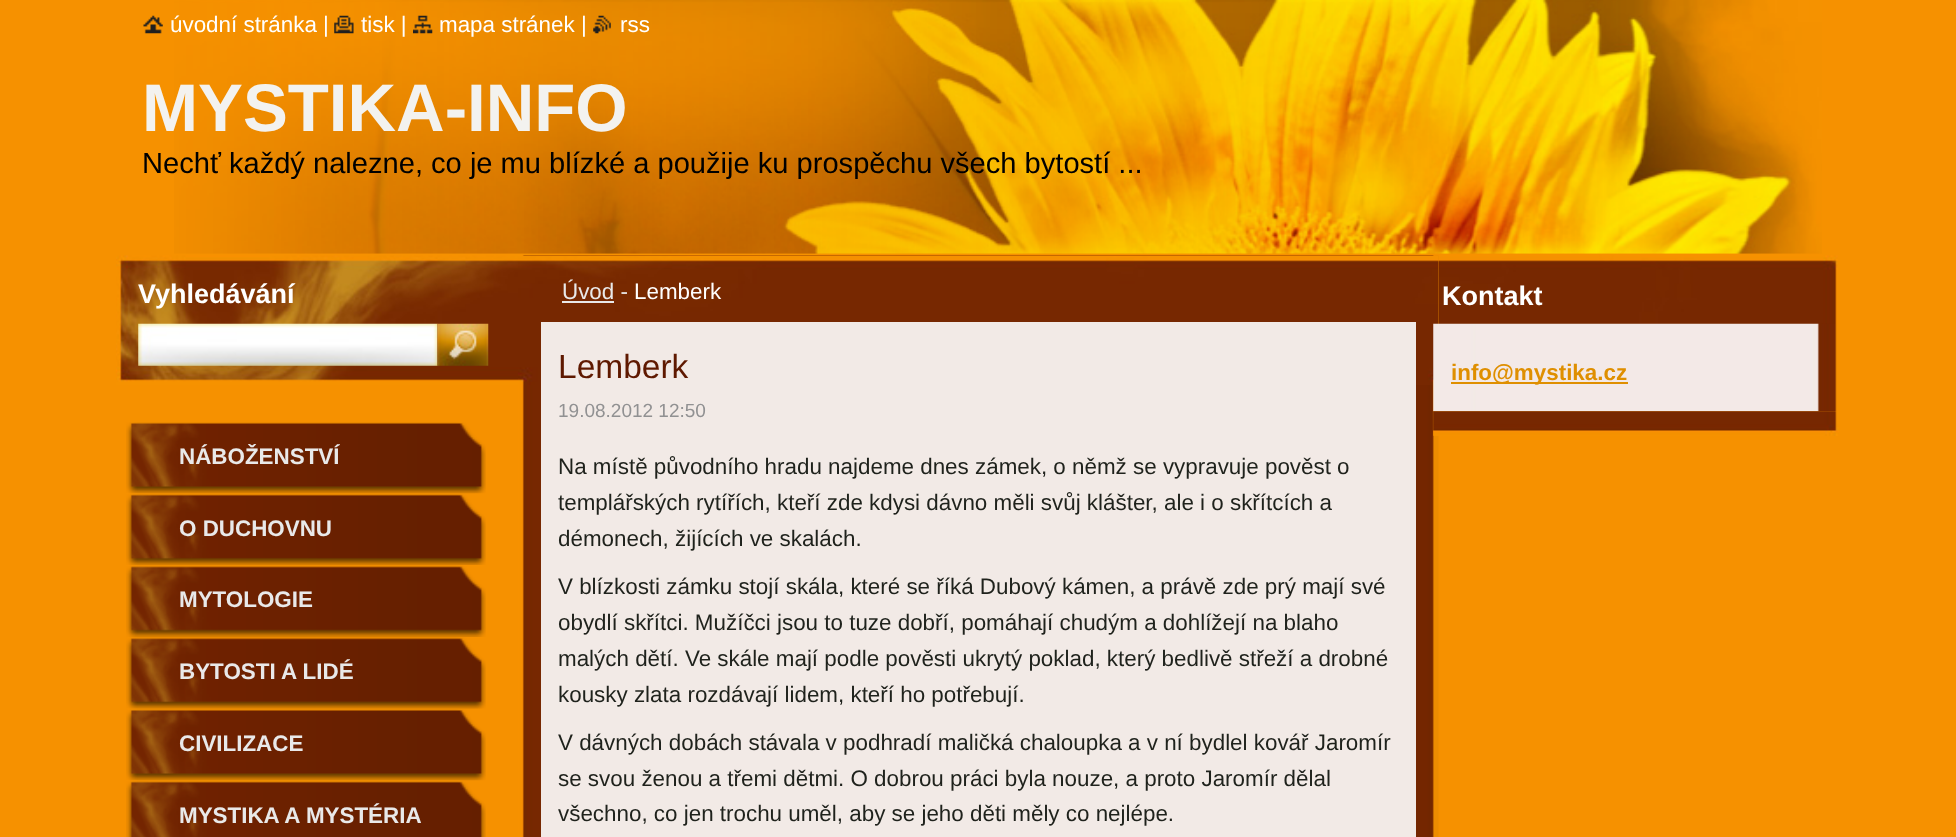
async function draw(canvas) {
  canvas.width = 1956;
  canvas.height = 837;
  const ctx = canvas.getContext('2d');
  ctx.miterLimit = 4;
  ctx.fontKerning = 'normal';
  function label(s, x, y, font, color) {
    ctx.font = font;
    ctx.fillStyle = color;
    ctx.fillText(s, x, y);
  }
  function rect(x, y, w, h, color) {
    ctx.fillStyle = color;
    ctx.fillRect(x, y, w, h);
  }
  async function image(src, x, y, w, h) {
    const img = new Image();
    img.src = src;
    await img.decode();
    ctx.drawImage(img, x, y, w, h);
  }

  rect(0, 0, 1956, 837, '#f69100');
  await image('assets/img1.png', 143, 15, 20, 19);
  await image('assets/img5.png', 174, 0, 1648, 254);
  label('úvodní stránka |', 170, 32, '22.4px Liberation Sans', '#fff');
  await image('assets/img2.png', 334, 15, 20, 19);
  label('tisk |', 361, 32, '22.4px Liberation Sans', '#fff');
  await image('assets/img3.png', 413, 15, 20, 19);
  label('mapa stránek |', 439, 32, '22.4px Liberation Sans', '#fff');
  await image('assets/img4.png', 593, 15, 18, 19);
  label('rss', 620, 32, '22.4px Liberation Sans', '#fff');
  label('MYSTIKA-INFO', 142, 131, 'bold 67.25px Liberation Sans', '#f3f2ef');
  label('Nechť každý nalezne, co je mu blízké a použije ku prospěchu všech bytostí ...', 142, 173, '29.1px Liberation Sans', '#000');
  await image('assets/img6.png', 116, 255, 1722, 130);
  label('Vyhledávání', 138, 303, 'bold 27px Liberation Sans', '#fff');
  await image('assets/img7.png', 138, 323, 300, 43);
  await image('assets/img8.png', 437, 323, 52, 43);
  await image('assets/img9.png', 518, 255, 921, 582);
  await image('assets/img10.png', 518, 255, 921, 130);
  label('Úvod -', 562, 299, '22.4px Liberation Sans', '#e9e9e9');
  rect(562, 301, 52, 2, '#e9e9e9');
  label('Lemberk', 634, 299, '22.4px Liberation Sans', '#fff');
  rect(541, 322, 875, 515, '#f2eae6');
  label('Lemberk', 558, 378, '33.5px Liberation Sans', '#5f1900');
  label('19.08.2012 12:50', 558, 417, '19px Liberation Sans', '#919192');
  label('Na místě původního hradu najdeme dnes zámek, o němž se vypravuje pověst o', 558, 474, '22.4px Liberation Sans', '#1f221c');
  label('templářských rytířích, kteří zde kdysi dávno měli svůj klášter, ale i o skřítcích a', 558, 510, '22.4px Liberation Sans', '#1f221c');
  label('démonech, žijících ve skalách.', 558, 546, '22.4px Liberation Sans', '#1f221c');
  label('V blízkosti zámku stojí skála, které se říká Dubový kámen, a právě zde prý mají své', 558, 594, '22.4px Liberation Sans', '#1f221c');
  label('obydlí skřítci. Mužíčci jsou to tuze dobří, pomáhají chudým a dohlížejí na blaho', 558, 630, '22.4px Liberation Sans', '#1f221c');
  label('malých dětí. Ve skále mají podle pověsti ukrytý poklad, který bedlivě střeží a drobné', 558, 666, '22.4px Liberation Sans', '#1f221c');
  label('kousky zlata rozdávají lidem, kteří ho potřebují.', 558, 702, '22.4px Liberation Sans', '#1f221c');
  label('V dávných dobách stávala v podhradí maličká chaloupka a v ní bydlel kovář Jaromír', 558, 750, '22.4px Liberation Sans', '#1f221c');
  label('se svou ženou a třemi dětmi. O dobrou práci byla nouze, a proto Jaromír dělal', 558, 786, '22.4px Liberation Sans', '#1f221c');
  label('všechno, co jen trochu uměl, aby se jeho děti měly co nejlépe.', 558, 821, '22.4px Liberation Sans', '#1f221c');
  label('Kontakt', 1442, 305, 'bold 27px Liberation Sans', '#fff');
  await image('assets/img11.png', 1433, 323, 405, 89);
  rect(1451, 382, 177, 2, '#df8f00');
  label('info@mystika.cz', 1451, 380, 'bold 22.4px Liberation Sans', '#df8f00');
  await image('assets/img12.png', 1433, 411, 406, 25);
  await image('assets/img13.png', 126, 422, 360, 72);
  label('NÁBOŽENSTVÍ', 179, 464, 'bold 22.4px Liberation Sans', '#e9e9e9');
  await image('assets/img14.png', 126, 494, 360, 71);
  label('O DUCHOVNU', 179, 536, 'bold 22.4px Liberation Sans', '#e9e9e9');
  await image('assets/img15.png', 126, 565, 360, 72);
  label('MYTOLOGIE', 179, 607, 'bold 22.4px Liberation Sans', '#e9e9e9');
  await image('assets/img16.png', 126, 637, 360, 72);
  label('BYTOSTI A LIDÉ', 179, 679, 'bold 22.4px Liberation Sans', '#e9e9e9');
  await image('assets/img13.png', 126, 709, 360, 72);
  label('CIVILIZACE', 179, 751, 'bold 22.4px Liberation Sans', '#e9e9e9');
  await image('assets/img17.png', 126, 781, 360, 56);
  label('MYSTIKA A MYSTÉRIA', 179, 823, 'bold 22.4px Liberation Sans', '#e9e9e9');
}

draw(document.querySelector('canvas'));
